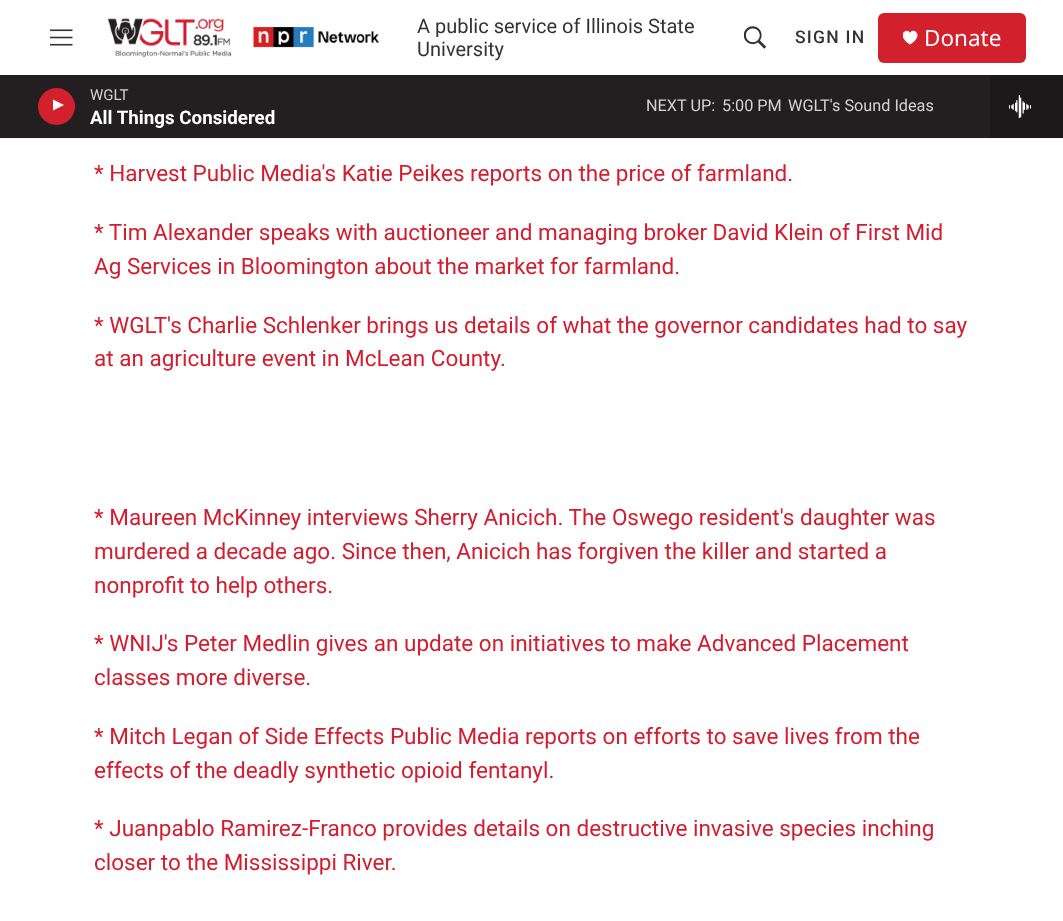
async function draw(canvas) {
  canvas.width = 1063;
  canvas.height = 921;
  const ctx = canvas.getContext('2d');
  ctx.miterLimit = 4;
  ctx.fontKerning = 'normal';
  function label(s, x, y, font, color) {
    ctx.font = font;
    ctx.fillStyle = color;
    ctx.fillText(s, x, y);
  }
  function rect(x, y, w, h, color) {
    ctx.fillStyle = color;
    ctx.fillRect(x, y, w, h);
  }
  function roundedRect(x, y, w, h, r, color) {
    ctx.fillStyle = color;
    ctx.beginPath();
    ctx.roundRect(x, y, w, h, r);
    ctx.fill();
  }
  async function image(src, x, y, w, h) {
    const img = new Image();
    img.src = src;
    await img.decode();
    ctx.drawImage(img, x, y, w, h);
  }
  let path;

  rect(0, 0, 1063, 921, '#fff');
  rect(0, 138, 1063, 1, '#f5f5f5');
  await image('assets/img1.png', 50, 29, 23, 17);
  await image('assets/img2.png', 107, 18, 273, 40);
  label('A public service of Illinois State', 417, 33, '20px Roboto', '#333');
  label('University', 417, 56, '20px Roboto', '#333');
  await image('assets/img3.png', 744, 26, 22, 23);
  ctx.letterSpacing = '1.25px';
  label('SIGN IN', 795, 43, '500 17.5px Roboto', '#333');
  roundedRect(878, 13, 148, 50, 6, '#d2202c');
  ctx.save();
  ctx.beginPath();
  ctx.rect(903, 30, 15, 15);
  ctx.clip();
  ctx.fillStyle = '#fff';
  path = new Path2D('M910 33C907.5 26.5 894.5 35 910 44.5C925.5 35 912.5 26.5 910 33Z');
  ctx.fill(path);
  ctx.restore();
  ctx.letterSpacing = '0px';
  label('Donate', 924, 46, '22.5px Noto Sans', '#fff');
  rect(0, 75, 990, 63, '#231f20');
  ctx.fillStyle = '#d2202d';
  ctx.beginPath();
  ctx.arc(56.5, 106.5, 18.5, 0, 2 * Math.PI);
  ctx.fill();
  ctx.save();
  ctx.beginPath();
  ctx.rect(53, 98, 14, 18);
  ctx.clip();
  ctx.fillStyle = '#fff';
  path = new Path2D('M52 99L64 105L52 111Z');
  ctx.fill(path);
  ctx.restore();
  label('WGLT', 90, 100, '15px Roboto', '#d3d2d2');
  label('All Things Considered', 90, 124, 'bold 18.75px Roboto', '#fff');
  label('NEXT UP:', 646, 111, '16.25px Roboto', '#d3d2d2');
  label('5:00 PM', 722, 111, '16.25px Roboto', '#d3d2d2');
  label('WGLT\'s Sound Ideas', 788, 111, '16.25px Roboto', '#d3d2d2');
  rect(990, 75, 73, 63, '#1c191a');
  await image('assets/img4.png', 1009, 95, 22, 23);
  label('* Harvest Public Media\'s Katie Peikes reports on the price of farmland.', 94, 181, '22.5px Roboto', '#d31d2e');
  label('* Tim Alexander speaks with auctioneer and managing broker David Klein of First Mid', 94, 240, '22.5px Roboto', '#d31d2e');
  label('Ag Services in Bloomington about the market for farmland.', 94, 274, '22.5px Roboto', '#d31d2e');
  label('* WGLT\'s Charlie Schlenker brings us details of what the governor candidates had to say', 94, 333, '22.5px Roboto', '#d31d2e');
  label('at an agriculture event in McLean County.', 94, 366, '22.5px Roboto', '#d31d2e');
  label('* Maureen McKinney interviews Sherry Anicich. The Oswego resident\'s daughter was', 94, 525, '22.5px Roboto', '#d31d2e');
  label('murdered a decade ago. Since then, Anicich has forgiven the killer and started a', 94, 559, '22.5px Roboto', '#d31d2e');
  label('nonprofit to help others.', 94, 593, '22.5px Roboto', '#d31d2e');
  label('* WNIJ\'s Peter Medlin gives an update on initiatives to make Advanced Placement', 94, 651, '22.5px Roboto', '#d31d2e');
  label('classes more diverse.', 94, 685, '22.5px Roboto', '#d31d2e');
  label('* Mitch Legan of Side Effects Public Media reports on efforts to save lives from the', 94, 744, '22.5px Roboto', '#d31d2e');
  label('effects of the deadly synthetic opioid fentanyl.', 94, 778, '22.5px Roboto', '#d31d2e');
  label('* Juanpablo Ramirez-Franco provides details on destructive invasive species inching', 94, 836, '22.5px Roboto', '#d31d2e');
  label('closer to the Mississippi River.', 94, 870, '22.5px Roboto', '#d31d2e');
}

draw(document.querySelector('canvas'));
